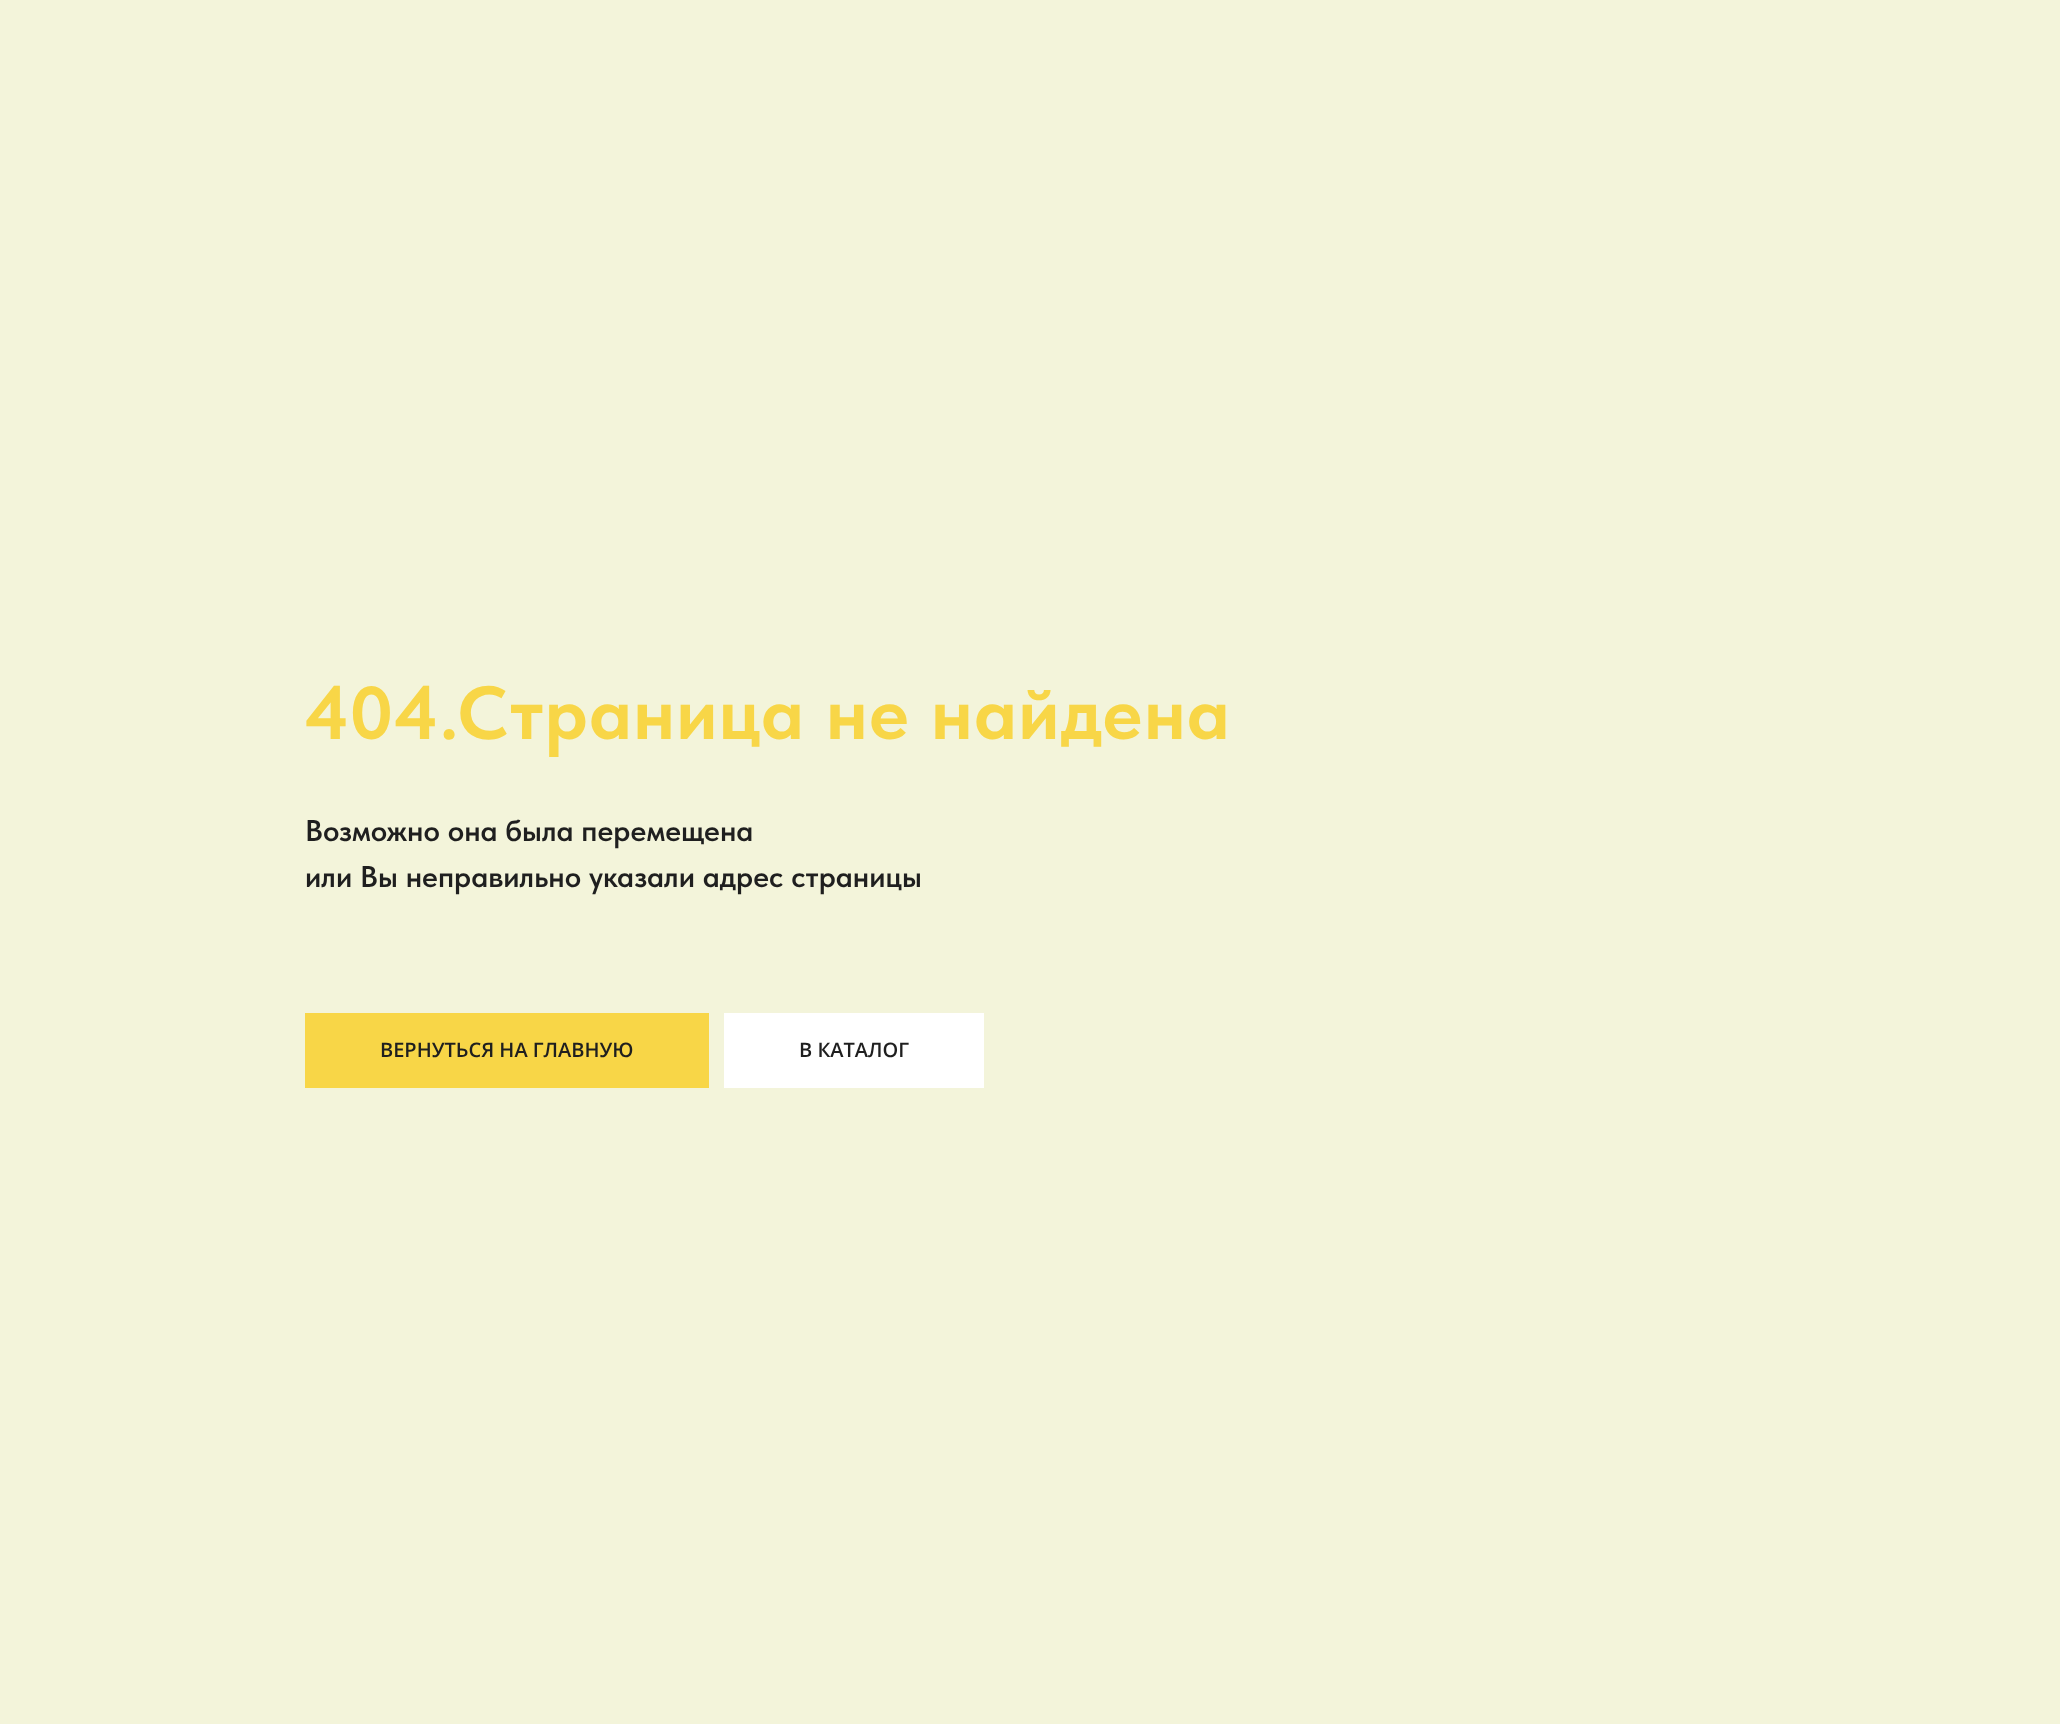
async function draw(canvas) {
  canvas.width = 2060;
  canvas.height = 1724;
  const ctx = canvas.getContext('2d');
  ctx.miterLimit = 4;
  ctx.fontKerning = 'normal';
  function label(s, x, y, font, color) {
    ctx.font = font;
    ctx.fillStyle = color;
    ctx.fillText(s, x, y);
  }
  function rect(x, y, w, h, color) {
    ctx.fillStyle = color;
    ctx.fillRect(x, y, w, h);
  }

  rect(0, 0, 2060, 1724, '#f3f4da');
  ctx.letterSpacing = '1.25px';
  label('404.Страница не найдена', 305, 739, 'bold 75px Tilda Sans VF', '#f8d647');
  ctx.letterSpacing = '0px';
  label('Возможно она была перемещена', 305, 841, '600 30px Tilda Sans VF', '#1f1f1f');
  label('или Вы неправильно указали адрес страницы', 305, 887, '600 30px Tilda Sans VF', '#1f1f1f');
  rect(305, 1013, 404, 75, '#f8d647');
  label('ВЕРНУТЬСЯ НА ГЛАВНУЮ', 380, 1057, '600 20px Open Sans', '#1f1f1f');
  rect(724, 1013, 260, 75, '#fff');
  label('В КАТАЛОГ', 799, 1057, '600 20px Open Sans', '#1f1f1f');
}

draw(document.querySelector('canvas'));
